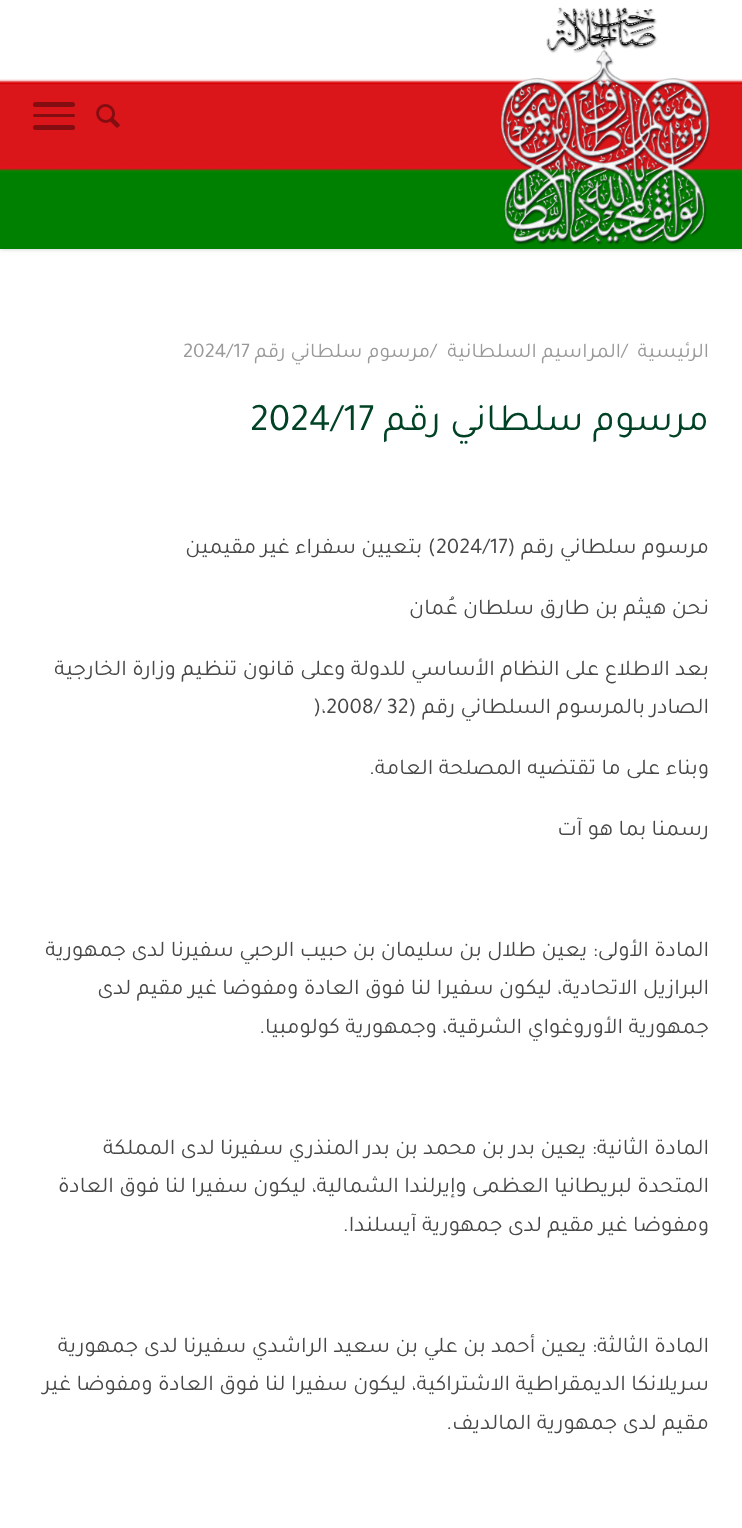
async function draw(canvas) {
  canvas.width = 742;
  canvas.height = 1528;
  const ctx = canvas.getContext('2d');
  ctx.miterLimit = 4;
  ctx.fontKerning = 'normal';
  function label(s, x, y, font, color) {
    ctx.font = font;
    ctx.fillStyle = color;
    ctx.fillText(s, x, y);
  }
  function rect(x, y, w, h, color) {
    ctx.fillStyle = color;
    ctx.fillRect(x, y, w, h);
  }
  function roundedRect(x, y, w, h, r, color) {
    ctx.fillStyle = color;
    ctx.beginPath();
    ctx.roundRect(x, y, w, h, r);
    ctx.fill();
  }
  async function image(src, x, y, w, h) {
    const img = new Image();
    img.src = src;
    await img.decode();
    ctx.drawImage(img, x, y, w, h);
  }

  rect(0, 0, 742, 1528, '#fff');
  ctx.fillStyle = '#00000038';
  ctx.filter = 'blur(2px)';
  ctx.beginPath();
  ctx.rect(0, 0, 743, 249);
  ctx.fill();
  ctx.filter = 'none';
  await image('assets/img1.png', 0, 0, 742, 249);
  await image('assets/img2.png', 501, 7, 209, 238);
  await image('assets/img3.png', 96, 104, 24, 24);
  roundedRect(33, 125, 42, 5, 2.5, '#830d10');
  roundedRect(33, 102, 42, 5, 2.5, '#830d10');
  roundedRect(33, 114, 42, 3, 1.5, '#830d10');
  ctx.direction = 'rtl';
  label('الرئيسية', 709, 357, '21px Tajawal', '#999');
  ctx.direction = 'ltr';
  label('/', 621, 357, '21px Tajawal', '#999');
  ctx.direction = 'rtl';
  label('المراسيم السلطانية', 621, 357, '21px Tajawal', '#999');
  ctx.direction = 'ltr';
  label('/', 430, 357, '21px Tajawal', '#999');
  ctx.direction = 'rtl';
  label('مرسوم سلطاني رقم', 430, 357, '21px Tajawal', '#999');
  ctx.direction = 'ltr';
  label('2024/17', 183, 357, '21px Tajawal', '#999');
  ctx.direction = 'rtl';
  label('مرسوم سلطاني رقم', 709, 430, '39px Tajawal', '#004225');
  ctx.direction = 'ltr';
  label('2024/17', 250, 430, '39px Tajawal', '#004225');
  ctx.direction = 'rtl';
  label('مرسوم سلطاني رقم (', 709, 553, '22.5px Tajawal', '#474747');
  ctx.direction = 'ltr';
  label('2024/17', 436, 553, '22.5px Tajawal', '#474747');
  ctx.direction = 'rtl';
  label(') بتعيين سفراء غير مقيمين', 436, 553, '22.5px Tajawal', '#474747');
  label('نحن هيثم بن طارق سلطان عُمان', 709, 614, '22.5px Tajawal', '#474747');
  label('بعد الاطلاع على النظام الأساسي للدولة وعلى قانون تنظيم وزارة الخارجية', 709, 675, '22.5px Tajawal', '#474747');
  label('الصادر بالمرسوم السلطاني رقم (', 709, 713, '22.5px Tajawal', '#474747');
  ctx.direction = 'ltr';
  label(')،2008/ 32', 313, 713, '22.5px Tajawal', '#474747');
  ctx.direction = 'rtl';
  label('وبناء على ما تقتضيه المصلحة العامة.', 709, 774, '22.5px Tajawal', '#474747');
  label('رسمنا بما هو آت', 709, 835, '22.5px Tajawal', '#474747');
  label('المادة الأولى: يعين طلال بن سليمان بن حبيب الرحبي سفيرنا لدى جمهورية', 709, 956, '22.5px Tajawal', '#474747');
  label('البرازيل الاتحادية، ليكون سفيرا لنا فوق العادة ومفوضا غير مقيم لدى', 709, 994, '22.5px Tajawal', '#474747');
  label('جمهورية الأوروغواي الشرقية، وجمهورية كولومبيا.', 709, 1033, '22.5px Tajawal', '#474747');
  label('المادة الثانية: يعين بدر بن محمد بن بدر المنذري سفيرنا لدى المملكة', 709, 1154, '22.5px Tajawal', '#474747');
  label('المتحدة لبريطانيا العظمى وإيرلندا الشمالية، ليكون سفيرا لنا فوق العادة', 709, 1192, '22.5px Tajawal', '#474747');
  label('ومفوضا غير مقيم لدى جمهورية آيسلندا.', 709, 1231, '22.5px Tajawal', '#474747');
  label('المادة الثالثة: يعين أحمد بن علي بن سعيد الراشدي سفيرنا لدى جمهورية', 709, 1352, '22.5px Tajawal', '#474747');
  label('سريلانكا الديمقراطية الاشتراكية، ليكون سفيرا لنا فوق العادة ومفوضا غير', 709, 1390, '22.5px Tajawal', '#474747');
  label('مقيم لدى جمهورية المالديف.', 709, 1429, '22.5px Tajawal', '#474747');
}

draw(document.querySelector('canvas'));
